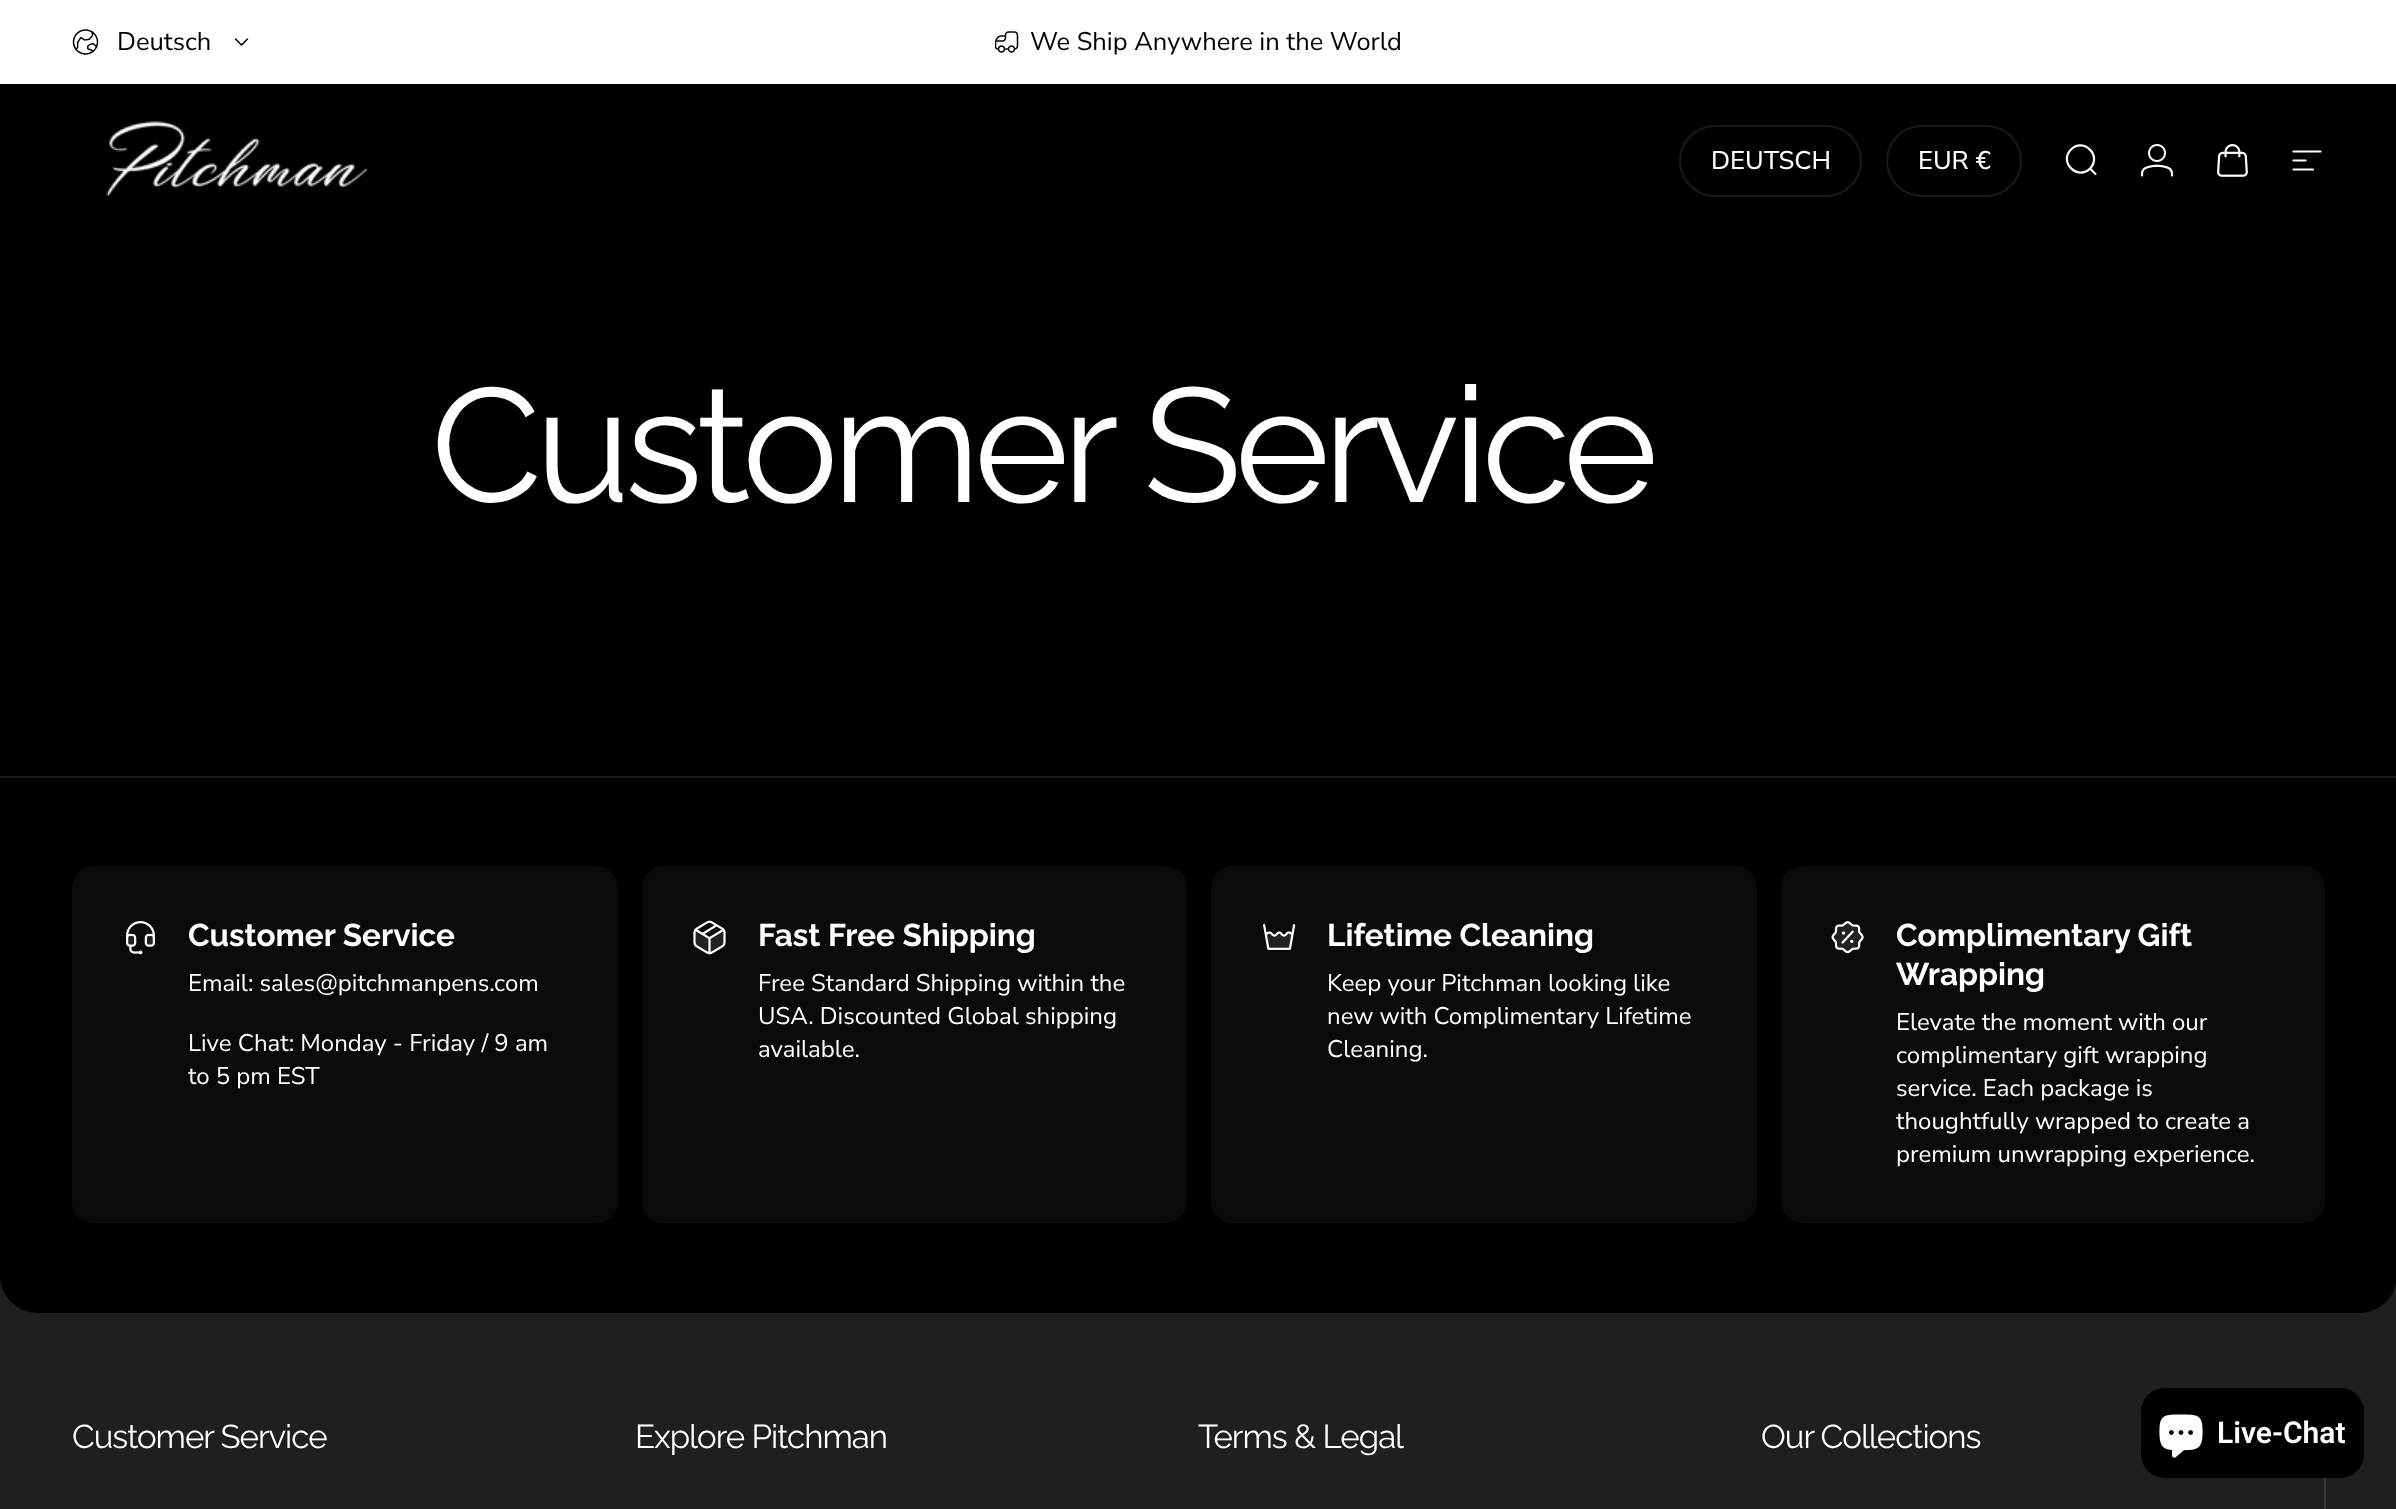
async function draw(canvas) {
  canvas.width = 2396;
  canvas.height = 1509;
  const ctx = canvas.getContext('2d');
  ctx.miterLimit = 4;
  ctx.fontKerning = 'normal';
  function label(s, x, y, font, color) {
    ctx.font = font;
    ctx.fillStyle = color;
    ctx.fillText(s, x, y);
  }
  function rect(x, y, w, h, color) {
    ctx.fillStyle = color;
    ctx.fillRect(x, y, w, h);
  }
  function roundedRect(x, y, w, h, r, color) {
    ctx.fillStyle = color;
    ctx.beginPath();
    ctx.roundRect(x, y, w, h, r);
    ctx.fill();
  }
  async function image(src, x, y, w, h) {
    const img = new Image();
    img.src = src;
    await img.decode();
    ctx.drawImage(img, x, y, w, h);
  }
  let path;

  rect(0, 0, 2396, 1509, '#000');
  rect(0, 0, 2396, 84, '#fff');
  await image('assets/img1.png', 72, 29, 27, 26);
  label('Deutsch', 117, 50, '25.5px Nunito Sans', '#000');
  path = new Path2D('M235.5 39L241.5 45L247.5 39');
  ctx.strokeStyle = '#000';
  ctx.lineWidth = 1.5;
  ctx.lineCap = 'round';
  ctx.lineJoin = 'round';
  ctx.stroke(path);
  await image('assets/img2.png', 995, 31, 24, 22);
  label('We Ship Anywhere in the World', 1030, 50, '25.5px Nunito Sans', '#000');
  await image('assets/img3.png', 106, 121, 262, 76);
  ctx.beginPath();
  ctx.roundRect(1680, 126, 181, 70, 35);
  ctx.strokeStyle = '#1a1a1a';
  ctx.lineWidth = 2;
  ctx.lineJoin = 'miter';
  ctx.stroke();
  label('DEUTSCH', 1711, 169, '500 25.5px Nunito Sans', '#fff');
  ctx.beginPath();
  ctx.roundRect(1887, 126, 134, 70, 35);
  ctx.stroke();
  label('EUR €', 1918, 169, '500 25.5px Nunito Sans', '#fff');
  path = new Path2D('M2095.5 174L2090 168.5M2090 168.5C2102.5 156 2083.5 137 2071 149.5C2058.5 162 2077.5 181 2090 168.5Z');
  ctx.strokeStyle = '#fff';
  ctx.lineWidth = 2.2;
  ctx.stroke(path);
  await image('assets/img4.png', 2140, 144, 34, 33);
  await image('assets/img5.png', 2217, 144, 31, 33);
  path = new Path2D('M2293.5 151.5H2320.5M2293.5 160.5H2305.5M2293.5 169.5H2313');
  ctx.stroke(path);
  ctx.letterSpacing = '-6.5px';
  label('Customer Service', 431, 502, '161.5px Raleway', '#fff');
  rect(0, 1275, 2396, 234, '#1f1f1f');
  ctx.fillStyle = '#000';
  path = new Path2D('M0 776H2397V1275C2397 1296 2380 1313 2359 1313H38C17 1313 0 1296 0 1275Z');
  ctx.fill(path);
  rect(0, 776, 2396, 2, '#1a1a1a');
  roundedRect(72, 866, 546, 357, 21, '#0a0a0a');
  await image('assets/img6.png', 126, 921, 29, 34);
  ctx.letterSpacing = '0px';
  label('Customer Service', 188, 946, 'bold 31.5px Raleway', '#fff');
  label('Email: sales@pitchmanpens.com', 188, 991, '24px Nunito Sans', '#fff');
  label('Live Chat: Monday - Friday / 9 am', 188, 1051, '24px Nunito Sans', '#fff');
  label('to 5 pm EST', 188, 1084, '24px Nunito Sans', '#fff');
  roundedRect(642, 866, 545, 357, 21, '#0a0a0a');
  await image('assets/img7.png', 693, 920, 33, 35);
  label('Fast Free Shipping', 758, 946, 'bold 31.5px Raleway', '#fff');
  label('Free Standard Shipping within the', 758, 991, '24px Nunito Sans', '#fff');
  label('USA. Discounted Global shipping', 758, 1024, '24px Nunito Sans', '#fff');
  label('available.', 758, 1057, '24px Nunito Sans', '#fff');
  roundedRect(1211, 866, 546, 357, 21, '#0a0a0a');
  await image('assets/img8.png', 1263, 924, 33, 26);
  label('Lifetime Cleaning', 1327, 946, 'bold 31.5px Raleway', '#fff');
  label('Keep your Pitchman looking like', 1327, 991, '24px Nunito Sans', '#fff');
  label('new with Complimentary Lifetime', 1327, 1024, '24px Nunito Sans', '#fff');
  label('Cleaning.', 1327, 1057, '24px Nunito Sans', '#fff');
  roundedRect(1781, 866, 544, 357, 21, '#0a0a0a');
  await image('assets/img9.png', 1831, 921, 33, 33);
  label('Complimentary Gift', 1896, 946, 'bold 31.5px Raleway', '#fff');
  label('Wrapping', 1896, 985, 'bold 31.5px Raleway', '#fff');
  label('Elevate the moment with our', 1896, 1030, '24px Nunito Sans', '#fff');
  label('complimentary gift wrapping', 1896, 1063, '24px Nunito Sans', '#fff');
  label('service. Each package is', 1896, 1096, '24px Nunito Sans', '#fff');
  label('thoughtfully wrapped to create a', 1896, 1129, '24px Nunito Sans', '#fff');
  label('premium unwrapping experience.', 1896, 1162, '24px Nunito Sans', '#fff');
  rect(2324, 1478, 2, 31, '#393939');
  ctx.letterSpacing = '-1px';
  label('Customer Service', 72, 1448, '33px Raleway', '#fff');
  label('Explore Pitchman', 635, 1448, '33px Raleway', '#fff');
  label('Terms & Legal', 1198, 1448, '33px Raleway', '#fff');
  label('Our Collections', 1761, 1448, '33px Raleway', '#fff');
  roundedRect(2141, 1388, 223, 90, 24, '#000');
  await image('assets/img10.png', 2159, 1414, 44, 44);
  ctx.letterSpacing = '0px';
  label('Live-Chat', 2217, 1443, '600 30px Roboto', '#fff');
}

draw(document.querySelector('canvas'));
